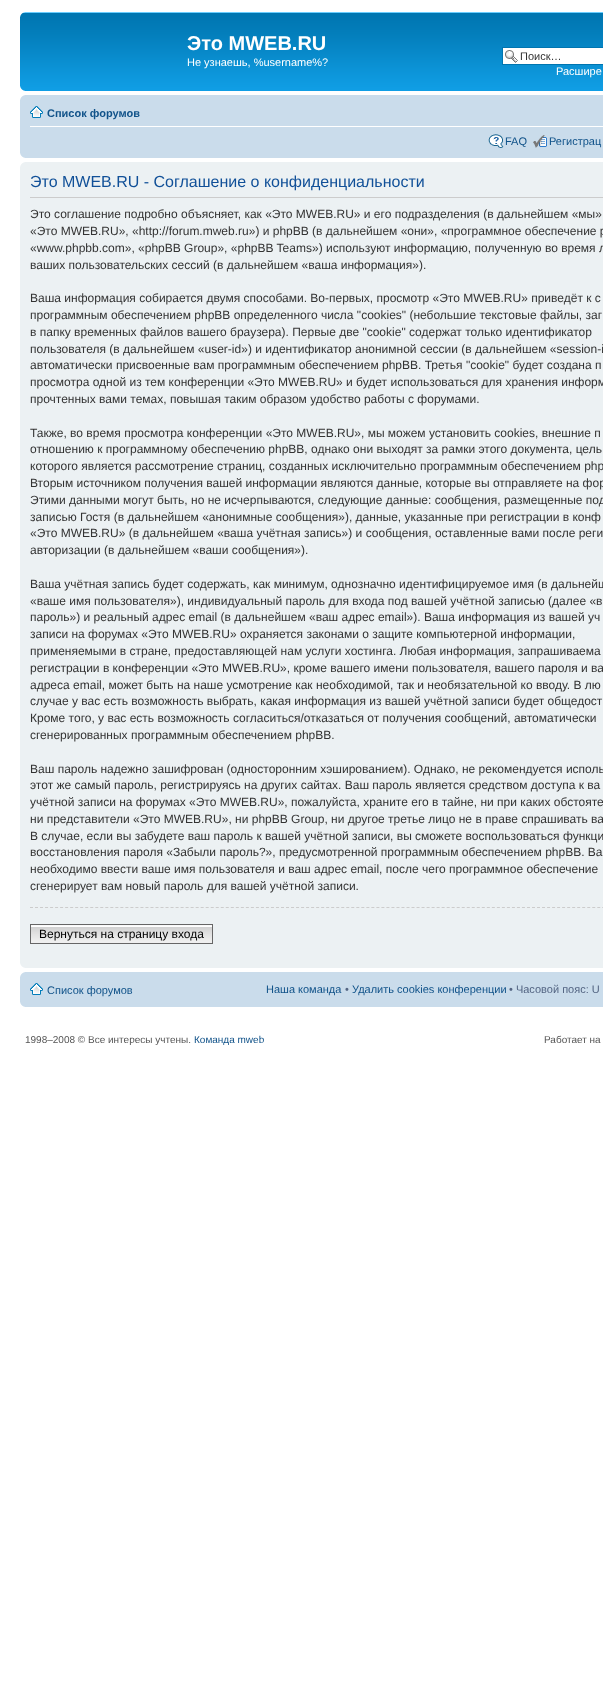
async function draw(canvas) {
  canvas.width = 603;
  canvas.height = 1687;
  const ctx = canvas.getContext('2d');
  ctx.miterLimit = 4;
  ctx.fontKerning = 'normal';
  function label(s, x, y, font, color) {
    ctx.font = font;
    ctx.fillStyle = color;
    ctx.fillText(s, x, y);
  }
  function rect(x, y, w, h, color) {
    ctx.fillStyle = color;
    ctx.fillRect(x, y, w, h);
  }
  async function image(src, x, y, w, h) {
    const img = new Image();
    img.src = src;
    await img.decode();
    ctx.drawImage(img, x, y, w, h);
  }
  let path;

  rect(0, 0, 603, 1687, '#fff');
  await image('assets/img1.png', 20, 12, 583, 79);
  await image('assets/img2.png', 20, 12, 5, 5);
  label('Это MWEB.RU', 187, 50, 'bold 20px Liberation Sans', '#fff');
  label('Не узнаешь, %username%?', 187, 66, '11px Liberation Sans', '#fff');
  rect(503, 48, 100, 16, '#fff');
  await image('assets/img3.png', 505, 50, 13, 13);
  ctx.strokeStyle = '#0075b0';
  ctx.strokeRect(502.5, 47.5, 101, 17);
  label('Поиск…', 520, 60, '11px Liberation Sans', '#333');
  label('Расшире', 556, 75, '11px Liberation Sans', '#fff');
  await image('assets/img4.png', 20, 86, 5, 5);
  rect(20, 95, 583, 63, '#cadceb');
  await image('assets/img5.png', 20, 95, 5, 5);
  rect(30, 126, 573, 1, '#fff');
  await image('assets/img6.png', 30, 106, 13, 12);
  label('Список форумов', 47, 117, 'bold 11px Liberation Sans', '#105289');
  await image('assets/img7.png', 488, 134, 16, 14);
  label('FAQ', 505, 145, '11px Liberation Sans', '#105289');
  await image('assets/img8.png', 533, 135, 14, 13);
  label('Регистрац', 549, 145, '11px Liberation Sans', '#105289');
  await image('assets/img9.png', 20, 153, 5, 5);
  rect(20, 162, 583, 806, '#ecf1f3');
  await image('assets/img10.png', 20, 162, 5, 5);
  rect(30, 197, 573, 1, '#ccc');
  label('Это MWEB.RU - Соглашение о конфиденциальности', 30, 187, '16px Liberation Sans', '#115098');
  label('Это соглашение подробно объясняет, как «Это MWEB.RU» и его подразделения (в дальнейшем «мы»', 30, 218, '12px Liberation Sans', '#333');
  label('«Это MWEB.RU», «http://forum.mweb.ru») и phpBB (в дальнейшем «они», «программное обеспечение p', 30, 235, '12px Liberation Sans', '#333');
  label('«www.phpbb.com», «phpBB Group», «phpBB Teams») используют информацию, полученную во время л', 30, 252, '12px Liberation Sans', '#333');
  label('ваших пользовательских сессий (в дальнейшем «ваша информация»).', 30, 269, '12px Liberation Sans', '#333');
  label('Ваша информация собирается двумя способами. Во-первых, просмотр «Это MWEB.RU» приведёт к с', 30, 302, '12px Liberation Sans', '#333');
  label('программным обеспечением phpBB определенного числа "cookies" (небольшие текстовые файлы, заг', 30, 319, '12px Liberation Sans', '#333');
  label('в папку временных файлов вашего браузера). Первые две "cookie" содержат только идентификатор', 30, 336, '12px Liberation Sans', '#333');
  label('пользователя (в дальнейшем «user-id») и идентификатор анонимной сессии (в дальнейшем «session-i', 30, 353, '12px Liberation Sans', '#333');
  label('автоматически присвоенные вам программным обеспечением phpBB. Третья "cookie" будет создана п', 30, 369, '12px Liberation Sans', '#333');
  label('просмотра одной из тем конференции «Это MWEB.RU» и будет использоваться для хранения информ', 30, 386, '12px Liberation Sans', '#333');
  label('прочтенных вами темах, повышая таким образом удобство работы с форумами.', 30, 403, '12px Liberation Sans', '#333');
  label('Также, во время просмотра конференции «Это MWEB.RU», мы можем установить cookies, внешние п', 30, 437, '12px Liberation Sans', '#333');
  label('отношению к программному обеспечению phpBB, однако они выходят за рамки этого документа, цель', 30, 453, '12px Liberation Sans', '#333');
  label('которого является рассмотрение страниц, созданных исключительно программным обеспечением php', 30, 470, '12px Liberation Sans', '#333');
  label('Вторым источником получения вашей информации являются данные, которые вы отправляете на фор', 30, 487, '12px Liberation Sans', '#333');
  label('Этими данными могут быть, но не исчерпываются, следующие данные: сообщения, размещенные под', 30, 504, '12px Liberation Sans', '#333');
  label('записью Гостя (в дальнейшем «анонимные сообщения»), данные, указанные при регистрации в конф', 30, 521, '12px Liberation Sans', '#333');
  label('«Это MWEB.RU» (в дальнейшем «ваша учётная запись») и сообщения, оставленные вами после реги', 30, 537, '12px Liberation Sans', '#333');
  label('авторизации (в дальнейшем «ваши сообщения»).', 30, 554, '12px Liberation Sans', '#333');
  label('Ваша учётная запись будет содержать, как минимум, однозначно идентифицируемое имя (в дальнейш', 30, 588, '12px Liberation Sans', '#333');
  label('«ваше имя пользователя»), индивидуальный пароль для входа под вашей учётной записью (далее «в', 30, 605, '12px Liberation Sans', '#333');
  label('пароль») и реальный адрес email (в дальнейшем «ваш адрес email»). Ваша информация из вашей уч', 30, 621, '12px Liberation Sans', '#333');
  label('записи на форумах «Это MWEB.RU» охраняется законами о защите компьютерной информации,', 30, 638, '12px Liberation Sans', '#333');
  label('применяемыми в стране, предоставляющей нам услуги хостинга. Любая информация, запрашиваема', 30, 655, '12px Liberation Sans', '#333');
  label('регистрации в конференции «Это MWEB.RU», кроме вашего имени пользователя, вашего пароля и ва', 30, 672, '12px Liberation Sans', '#333');
  label('адреса email, может быть на наше усмотрение как необходимой, так и необязательной ко вводу. В лю', 30, 689, '12px Liberation Sans', '#333');
  label('случае у вас есть возможность выбрать, какая информация из вашей учётной записи будет общедост', 30, 705, '12px Liberation Sans', '#333');
  label('Кроме того, у вас есть возможность согласиться/отказаться от получения сообщений, автоматически', 30, 722, '12px Liberation Sans', '#333');
  label('сгенерированных программным обеспечением phpBB.', 30, 739, '12px Liberation Sans', '#333');
  label('Ваш пароль надежно зашифрован (односторонним хэшированием). Однако, не рекомендуется исполь', 30, 773, '12px Liberation Sans', '#333');
  label('этот же самый пароль, регистрируясь на других сайтах. Ваш пароль является средством доступа к ва', 30, 789, '12px Liberation Sans', '#333');
  label('учётной записи на форумах «Это MWEB.RU», пожалуйста, храните его в тайне, ни при каких обстояте', 30, 806, '12px Liberation Sans', '#333');
  label('ни представители «Это MWEB.RU», ни phpBB Group, ни другое третье лицо не в праве спрашивать ва', 30, 823, '12px Liberation Sans', '#333');
  label('В случае, если вы забудете ваш пароль к вашей учётной записи, вы сможете воспользоваться функци', 30, 840, '12px Liberation Sans', '#333');
  label('восстановления пароля «Забыли пароль?», предусмотренной программным обеспечением phpBB. Ва', 30, 856, '12px Liberation Sans', '#333');
  label('необходимо ввести ваше имя пользователя и ваш адрес email, после чего программное обеспечение', 30, 873, '12px Liberation Sans', '#333');
  label('сгенерирует вам новый пароль для вашей учётной записи.', 30, 890, '12px Liberation Sans', '#333');
  path = new Path2D('M30 907.5H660');
  ctx.strokeStyle = '#ccc';
  ctx.setLineDash([3, 2.02]);
  ctx.stroke(path);
  await image('assets/img11.png', 31, 926, 181, 17);
  rect(31, 925, 181, 1, '#fafafa');
  ctx.strokeStyle = '#666';
  ctx.setLineDash([]);
  ctx.strokeRect(30.5, 924.5, 182, 19);
  label('Вернуться на страницу входа', 39, 938, '12px Liberation Sans', '#000');
  await image('assets/img12.png', 20, 963, 5, 5);
  rect(20, 972, 583, 35, '#cadceb');
  await image('assets/img5.png', 20, 972, 5, 5);
  await image('assets/img6.png', 30, 983, 13, 12);
  label('Список форумов', 47, 994, '11px Liberation Sans', '#105289');
  label('Наша команда', 266, 993, '11px Liberation Sans', '#105289');
  label('•', 345, 993, '11px Liberation Sans', '#536482');
  label('Удалить cookies конференции', 352, 993, '11px Liberation Sans', '#105289');
  label('• Часовой пояс: U', 509, 993, '11px Liberation Sans', '#536482');
  await image('assets/img9.png', 20, 1002, 5, 5);
  label('1998–2008 © Все интересы учтены.', 25, 1043, '10px Liberation Sans', '#555');
  label('Команда mweb', 194, 1043, '10px Liberation Sans', '#105289');
  label('Работает на', 544, 1043, '10px Liberation Sans', '#555');
}

draw(document.querySelector('canvas'));
